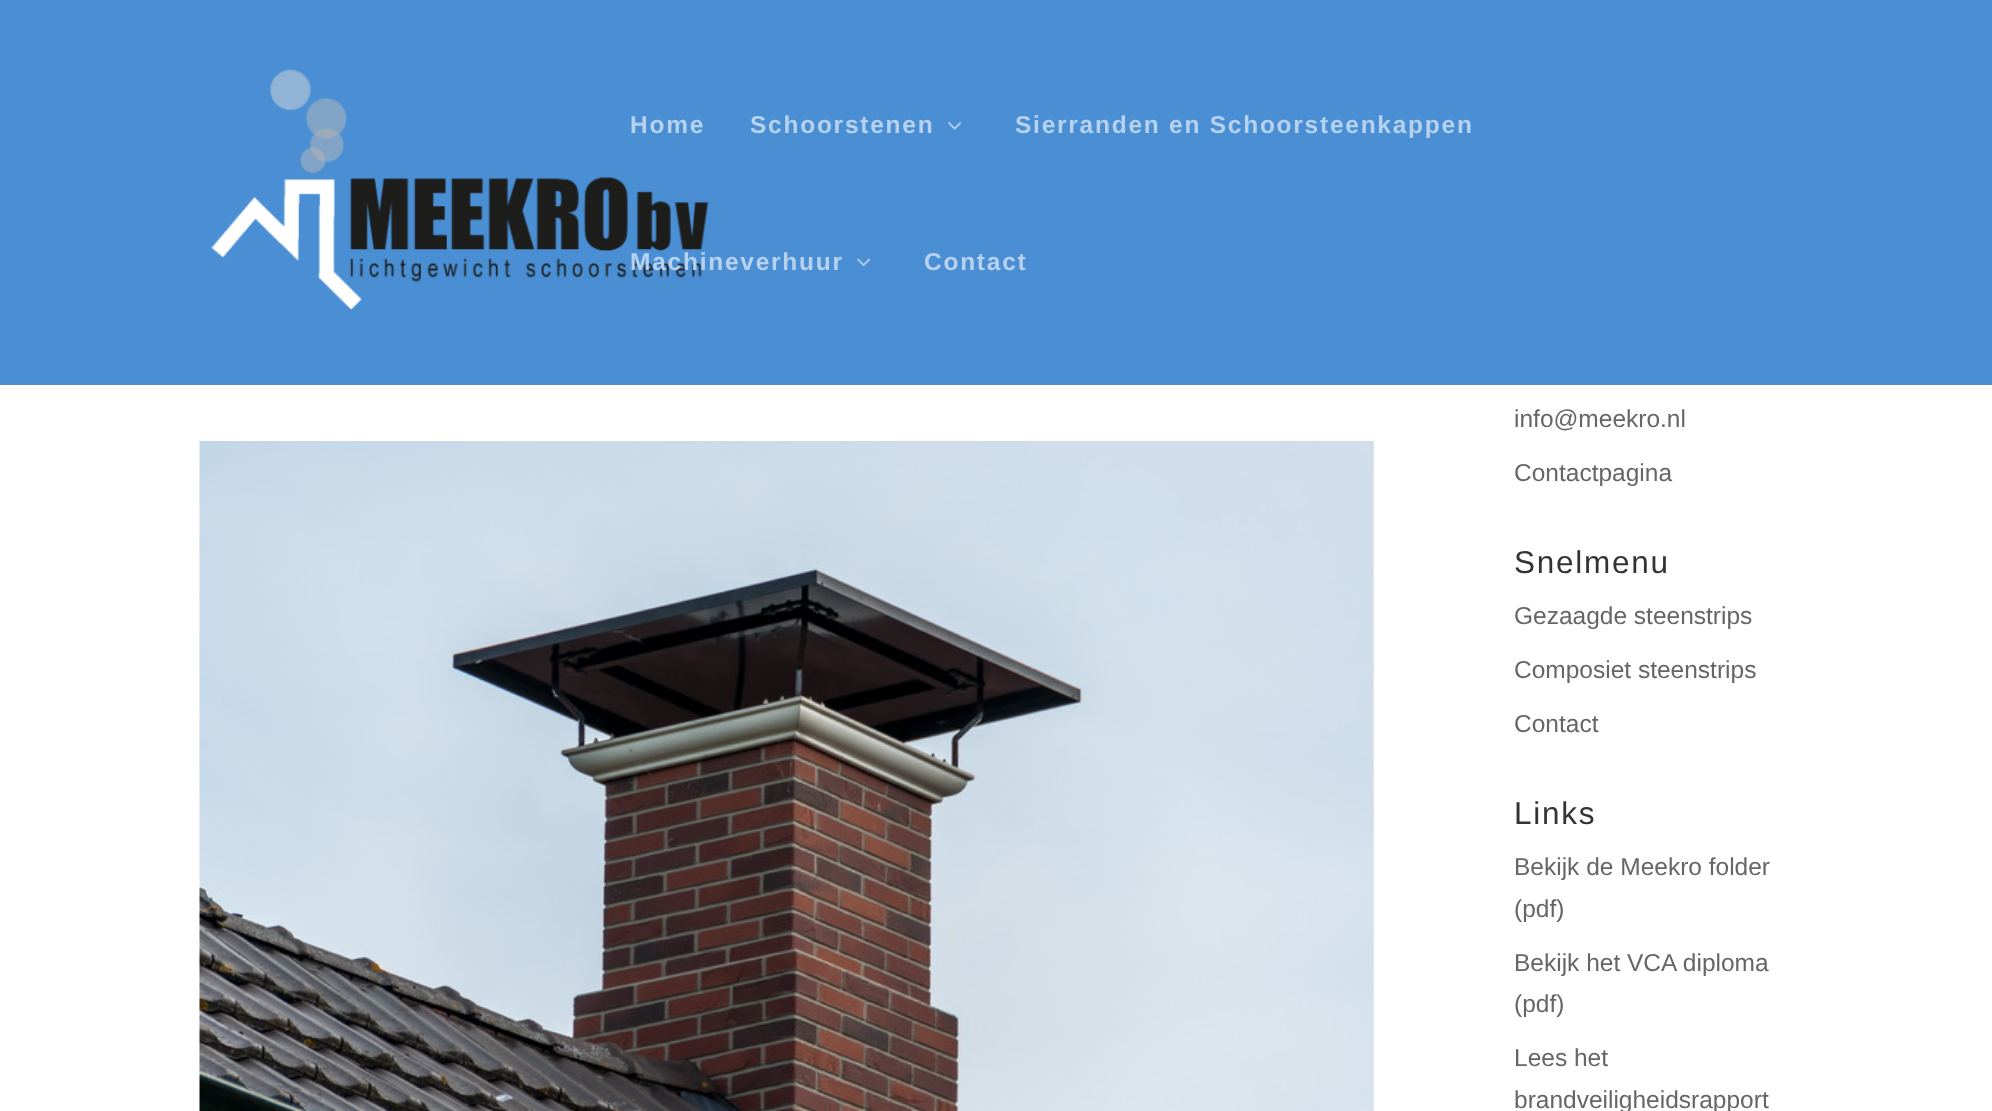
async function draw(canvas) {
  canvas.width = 1992;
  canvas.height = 1111;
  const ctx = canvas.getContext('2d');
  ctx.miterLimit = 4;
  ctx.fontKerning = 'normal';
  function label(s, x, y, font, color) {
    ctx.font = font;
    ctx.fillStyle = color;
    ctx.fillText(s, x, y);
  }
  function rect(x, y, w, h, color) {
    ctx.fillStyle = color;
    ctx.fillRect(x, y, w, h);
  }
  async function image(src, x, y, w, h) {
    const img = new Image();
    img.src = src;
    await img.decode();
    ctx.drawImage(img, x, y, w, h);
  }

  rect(0, 0, 1992, 1111, '#fff');
  rect(0, 0, 1992, 385, '#4a8fd4');
  await image('assets/img1.png', 210, 69, 499, 241);
  ctx.letterSpacing = '1.75px';
  label('Home', 630, 133, 'bold 24.5px Liberation Sans', '#b7d2ee');
  label('Schoorstenen', 750, 133, 'bold 24.5px Liberation Sans', '#b7d2ee');
  await image('assets/img2.png', 948, 122, 14, 8);
  label('Sierranden en Schoorsteenkappen', 1015, 133, 'bold 24.5px Liberation Sans', '#b7d2ee');
  label('Machineverhuur', 630, 270, 'bold 24.5px Liberation Sans', '#b7d2ee');
  await image('assets/img3.png', 857, 258, 14, 8);
  label('Contact', 924, 270, 'bold 24.5px Liberation Sans', '#b7d2ee');
  await image('assets/img4.png', 199, 441, 1175, 670);
  ctx.letterSpacing = '0px';
  label('info@meekro.nl', 1514, 427, '24.5px Liberation Sans', '#666');
  label('Contactpagina', 1514, 481, '24.5px Liberation Sans', '#666');
  ctx.letterSpacing = '1.75px';
  label('Snelmenu', 1514, 573, '31.5px Liberation Sans', '#333');
  ctx.letterSpacing = '0px';
  label('Gezaagde steenstrips', 1514, 624, '24.5px Liberation Sans', '#666');
  label('Composiet steenstrips', 1514, 678, '24.5px Liberation Sans', '#666');
  label('Contact', 1514, 732, '24.5px Liberation Sans', '#666');
  ctx.letterSpacing = '1.75px';
  label('Links', 1514, 824, '31.5px Liberation Sans', '#333');
  ctx.letterSpacing = '0px';
  label('Bekijk de Meekro folder', 1514, 875, '24.5px Liberation Sans', '#666');
  label('(pdf)', 1514, 917, '24.5px Liberation Sans', '#666');
  label('Bekijk het VCA diploma', 1514, 971, '24.5px Liberation Sans', '#666');
  label('(pdf)', 1514, 1012, '24.5px Liberation Sans', '#666');
  label('Lees het', 1514, 1066, '24.5px Liberation Sans', '#666');
  label('brandveiligheidsrapport', 1514, 1108, '24.5px Liberation Sans', '#666');
}

draw(document.querySelector('canvas'));
